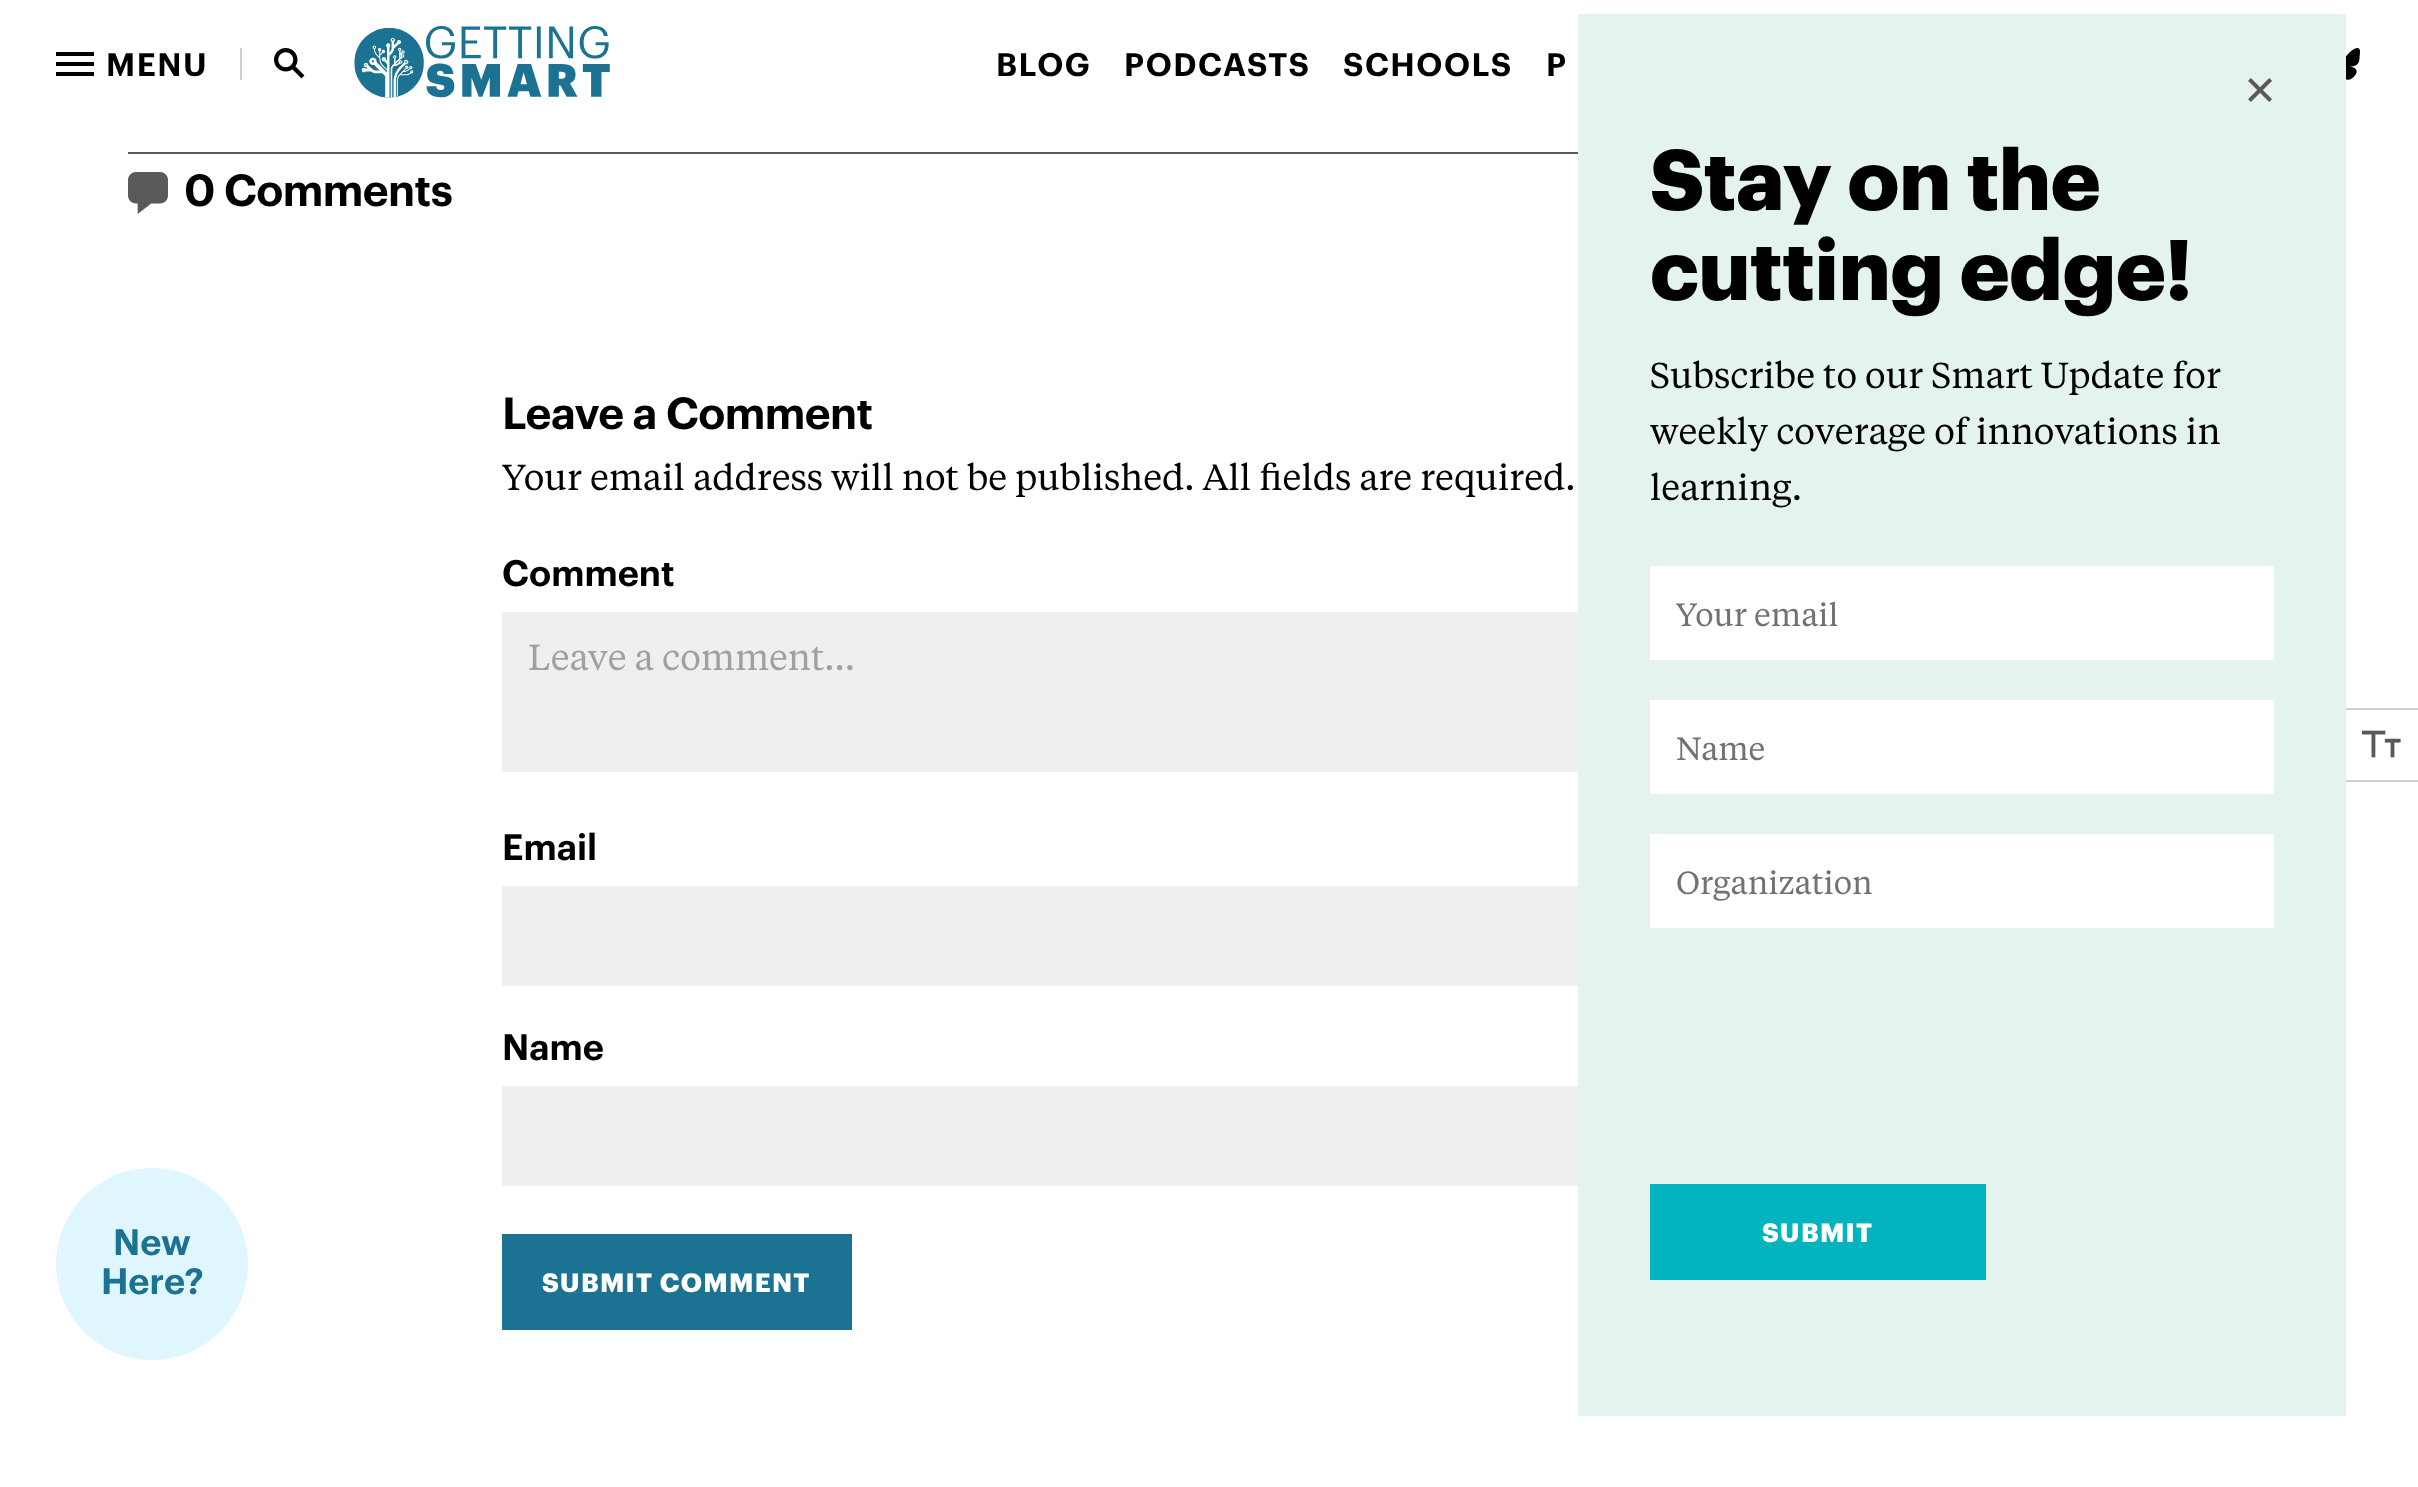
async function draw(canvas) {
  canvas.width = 2418;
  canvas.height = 1487;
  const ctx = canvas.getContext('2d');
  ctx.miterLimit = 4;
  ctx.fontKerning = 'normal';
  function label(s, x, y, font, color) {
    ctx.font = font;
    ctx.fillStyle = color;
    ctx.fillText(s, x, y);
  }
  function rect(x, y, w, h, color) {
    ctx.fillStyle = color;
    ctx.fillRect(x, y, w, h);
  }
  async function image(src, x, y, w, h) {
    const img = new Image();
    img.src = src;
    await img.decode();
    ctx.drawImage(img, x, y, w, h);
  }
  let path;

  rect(0, 0, 2418, 1487, '#fff');
  ctx.fillStyle = '#000';
  path = new Path2D('M94 56H56V52H94ZM94 66H56V62H94ZM56 76H94V72H56Z');
  ctx.fill(path, 'evenodd');
  ctx.letterSpacing = '1.5px';
  label('MENU', 106, 76, '600 32px Graphik', '#000');
  rect(240, 48, 2, 32, '#cfcecd');
  await image('assets/img1.png', 274, 48, 31, 31);
  await image('assets/img2.png', 354, 26, 256, 72);
  label('BLOG', 996, 76, '600 32px Graphik', '#000');
  label('PODCASTS', 1124, 76, '600 32px Graphik', '#000');
  label('SCHOOLS', 1343, 76, '600 32px Graphik', '#000');
  label('P', 1546, 76, '600 32px Graphik', '#000');
  await image('assets/img3.png', 2346, 48, 14, 32);
  rect(128, 152, 1450, 2, '#5b5958');
  await image('assets/img4.png', 128, 172, 40, 42);
  ctx.letterSpacing = '-0.6px';
  label('0 Comments', 184, 206, '600 44px Graphik', '#000');
  label('Leave a Comment', 502, 429, '600 44px Graphik', '#000');
  ctx.letterSpacing = '0px';
  label('Your email address will not be published. All fields are required.', 502, 490, '36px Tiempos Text', '#000');
  label('Comment', 502, 586, '600 36px Graphik', '#000');
  rect(502, 612, 1076, 160, '#efefef');
  label('Leave a comment...', 528, 670, '36px Tiempos Text', '#a1a09f');
  label('Email', 502, 860, '600 36px Graphik', '#000');
  rect(502, 886, 1076, 100, '#efefef');
  label('Name', 502, 1060, '600 36px Graphik', '#000');
  rect(502, 1086, 1076, 100, '#efefef');
  rect(502, 1234, 350, 96, '#1c7293');
  ctx.letterSpacing = '1.25px';
  label('SUBMIT COMMENT', 542, 1292, 'bold 26px Graphik', '#fff');
  rect(2344, 708, 74, 2, '#cfcecd');
  rect(2344, 780, 74, 2, '#cfcecd');
  rect(1578, 14, 768, 1402, '#e5f3ed');
  await image('assets/img5.png', 2248, 78, 24, 24);
  ctx.letterSpacing = '-0.6px';
  label('Stay on the', 1650, 210, 'bold 84px Graphik', '#000');
  label('cutting edge!', 1650, 300, 'bold 84px Graphik', '#000');
  ctx.letterSpacing = '0px';
  label('Subscribe to our Smart Update for', 1650, 388, '36px Tiempos Text', '#000');
  label('weekly coverage of innovations in', 1650, 444, '36px Tiempos Text', '#000');
  label('learning.', 1650, 500, '36px Tiempos Text', '#000');
  rect(1650, 566, 624, 94, '#fff');
  label('Your email', 1676, 626, '32px Tiempos Text', '#737271');
  rect(1650, 700, 624, 94, '#fff');
  label('Name', 1676, 760, '32px Tiempos Text', '#737271');
  rect(1650, 834, 624, 94, '#fff');
  label('Organization', 1676, 894, '32px Tiempos Text', '#737271');
  rect(1650, 1184, 336, 96, '#03b3be');
  ctx.letterSpacing = '1.25px';
  label('SUBMIT', 1762, 1242, 'bold 26px Graphik', '#fff');
  await image('assets/img6.png', 2362, 730, 39, 28);
  ctx.fillStyle = '#dff6ff';
  ctx.beginPath();
  ctx.arc(152, 1264, 96, 0, 2 * Math.PI);
  ctx.fill();
  ctx.letterSpacing = '0px';
  label('New', 113, 1255, '600 36px Graphik', '#1c7293');
  label('Here?', 101, 1294, '600 36px Graphik', '#1c7293');
}

draw(document.querySelector('canvas'));
